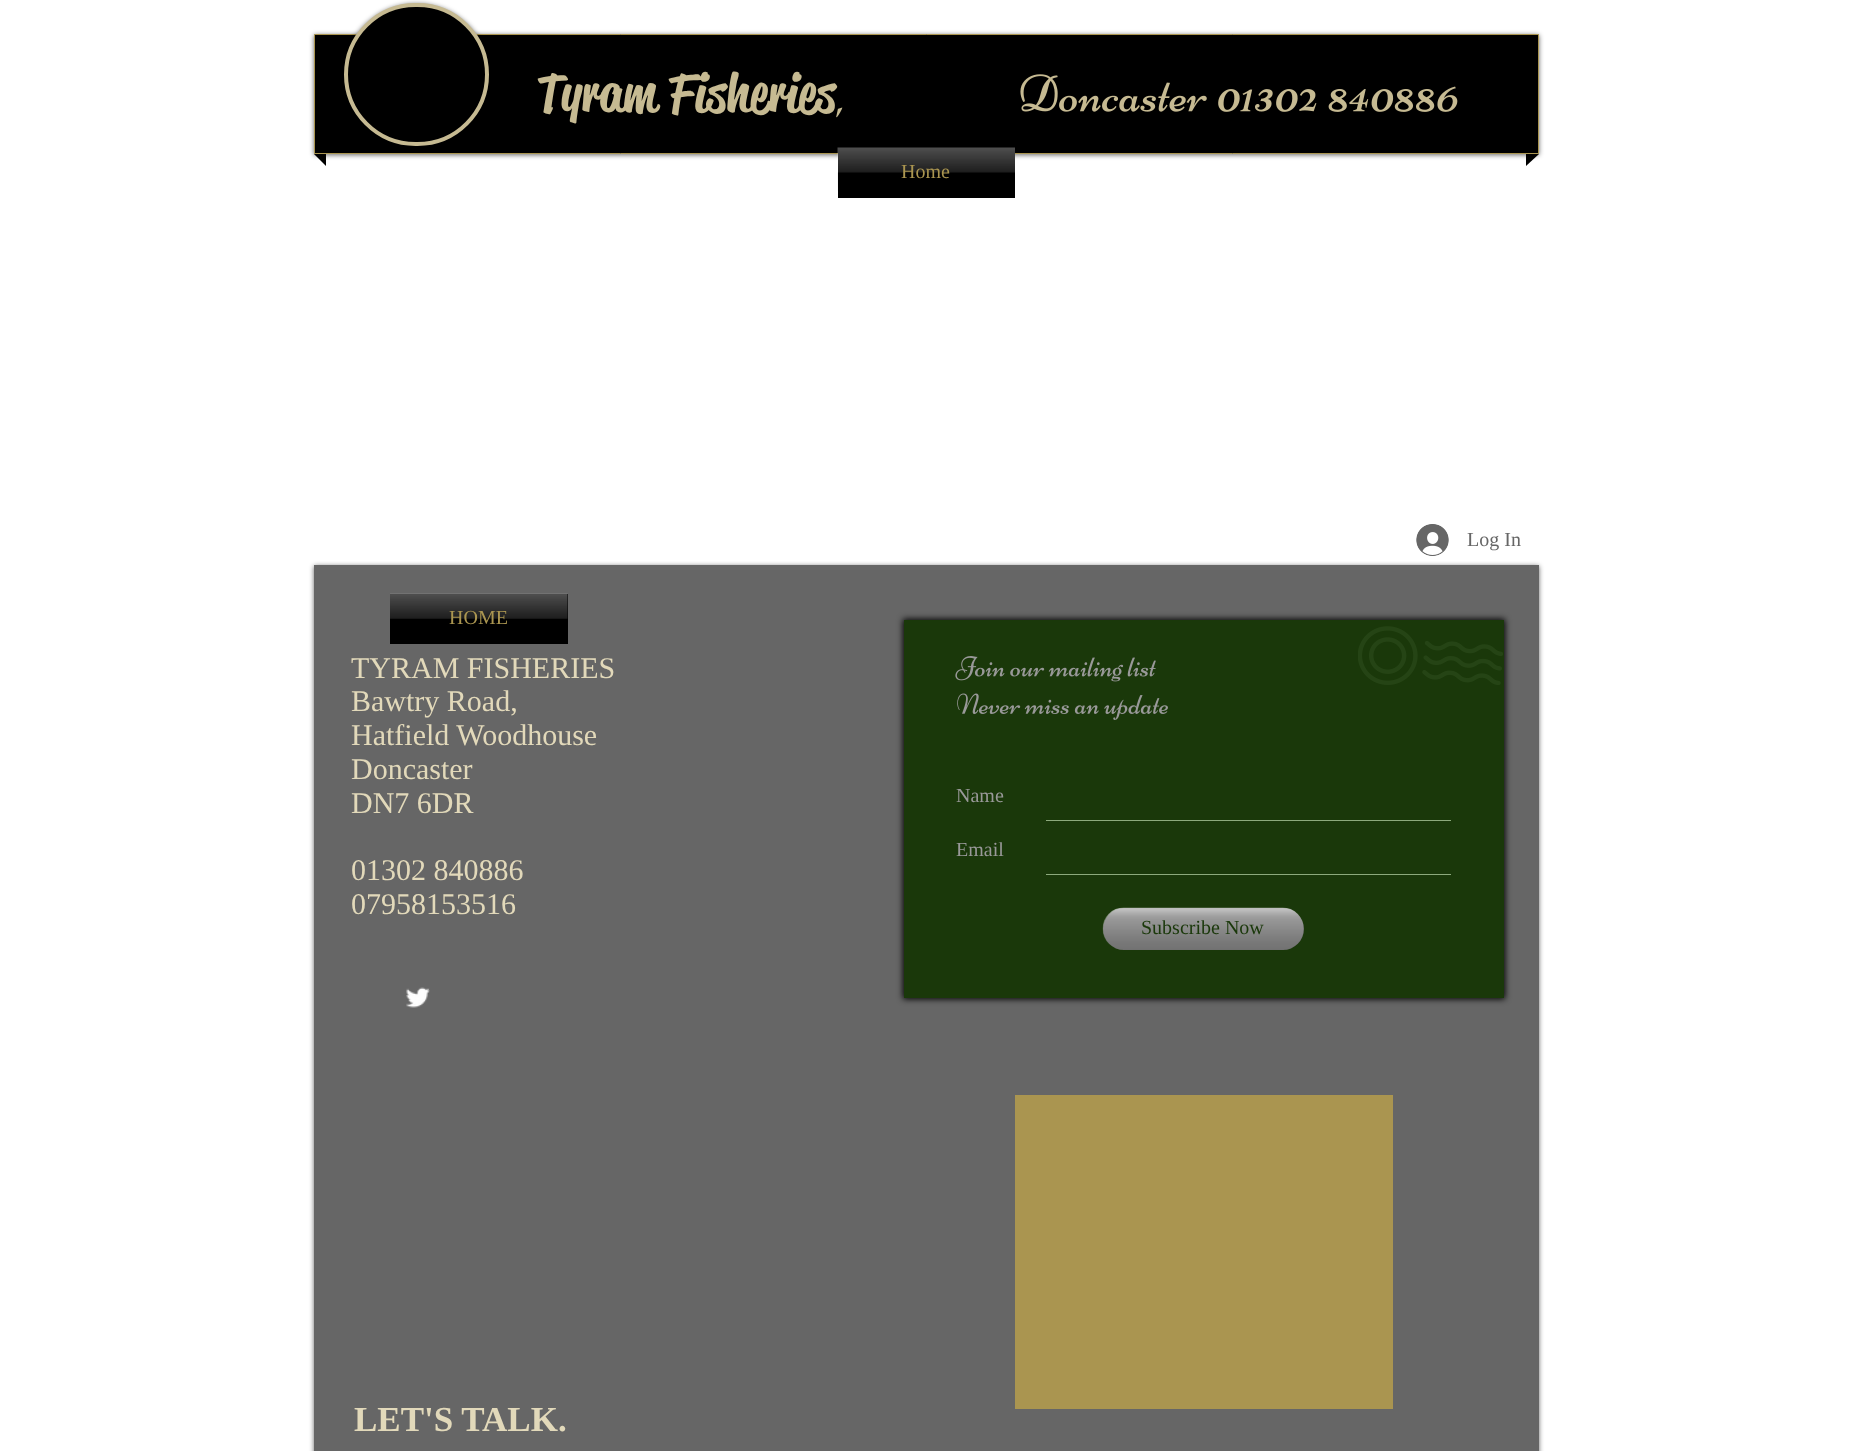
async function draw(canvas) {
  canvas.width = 1851;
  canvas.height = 1451;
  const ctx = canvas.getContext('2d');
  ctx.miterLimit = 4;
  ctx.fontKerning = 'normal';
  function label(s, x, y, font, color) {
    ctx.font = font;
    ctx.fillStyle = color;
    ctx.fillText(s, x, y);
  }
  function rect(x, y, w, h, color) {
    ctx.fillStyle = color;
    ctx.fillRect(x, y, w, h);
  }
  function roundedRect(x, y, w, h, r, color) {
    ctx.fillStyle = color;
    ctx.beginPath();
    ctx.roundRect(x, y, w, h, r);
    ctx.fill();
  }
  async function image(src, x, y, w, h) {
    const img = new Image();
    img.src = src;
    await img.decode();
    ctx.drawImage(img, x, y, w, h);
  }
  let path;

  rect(0, 0, 1851, 1451, '#fff');
  ctx.fillStyle = '#000';
  path = new Path2D('M314 154H326V166Z');
  ctx.fill(path);
  path = new Path2D('M1526 154H1539L1526 166Z');
  ctx.fill(path);
  ctx.fillStyle = '#00000099';
  ctx.filter = 'blur(2.5px)';
  ctx.beginPath();
  ctx.rect(314, 35, 1225, 120);
  ctx.fill();
  ctx.filter = 'none';
  ctx.fillStyle = '#000';
  ctx.beginPath();
  ctx.rect(314.5, 34.5, 1224, 119);
  ctx.fill();
  ctx.strokeStyle = '#aa9550';
  ctx.stroke();
  ctx.fillStyle = '#00000099';
  ctx.filter = 'blur(2.5px)';
  ctx.beginPath();
  ctx.roundRect(344, 4, 145, 144, 72);
  ctx.fill();
  ctx.filter = 'none';
  ctx.fillStyle = '#000';
  ctx.beginPath();
  ctx.roundRect(346, 5, 141, 139, 69.5);
  ctx.fill();
  ctx.strokeStyle = '#c6ba92';
  ctx.lineWidth = 4;
  ctx.stroke();
  label('Tyram Fisheries', 537, 111, '500 52.5px "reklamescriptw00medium"', '#c6ba92');
  await image('assets/img1.png', 836, 107, 7, 11);
  await image('assets/img2.png', 1020, 74, 438, 38);
  rect(838, 153, 177, 45, '#000');
  await image('assets/img3.png', 837, 147, 178, 44);
  label('Home', 901, 178, '20px Liberation Serif', '#aa9550');
  await image('assets/img4.png', 1416, 524, 33, 32);
  label('Log In', 1467, 546, '20px Liberation Serif', '#666');
  ctx.save();
  path = new Path2D('M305 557H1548V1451H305ZM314 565H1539V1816H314Z');
  ctx.clip(path, 'evenodd');
  ctx.fillStyle = '#00000099';
  ctx.filter = 'blur(2.5px)';
  ctx.beginPath();
  ctx.rect(314, 566, 1225, 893);
  ctx.fill();
  ctx.filter = 'none';
  ctx.restore();
  rect(314, 565, 1225, 886, '#00000099');
  rect(390, 594, 178, 50, '#000');
  await image('assets/img5.png', 390, 593, 178, 26);
  label('HOME', 449, 624, '20px Liberation Serif', '#aa9550');
  label('TYRAM FISHERIES', 351, 678, '30px Liberation Serif', '#e2d9ba');
  label('Bawtry Road,', 351, 711, '30px Liberation Serif', '#e2d9ba');
  label('Hatfield Woodhouse', 351, 745, '30px Liberation Serif', '#e2d9ba');
  label('Doncaster', 351, 779, '30px Liberation Serif', '#e2d9ba');
  label('DN7 6DR', 351, 813, '30px Liberation Serif', '#e2d9ba');
  label('01302 840886', 351, 880, '30px Liberation Serif', '#e2d9ba');
  label('07958153516', 351, 914, '30px Liberation Serif', '#e2d9ba');
  ctx.fillStyle = '#000';
  ctx.filter = 'blur(3px)';
  ctx.beginPath();
  ctx.rect(903, 619, 602, 380);
  ctx.fill();
  ctx.filter = 'none';
  rect(904, 620, 600, 378, '#1a380a');
  await image('assets/img6.png', 955, 656, 201, 26);
  await image('assets/img7.png', 1358, 626, 145, 59);
  await image('assets/img8.png', 957, 693, 211, 27);
  label('Name', 956, 802, '20px Liberation Serif', '#999');
  rect(1046, 820, 405, 1, '#8daa7d');
  label('Email', 956, 856, '20px Liberation Serif', '#999');
  rect(1046, 874, 405, 1, '#8daa7d');
  roundedRect(1103, 908, 201, 42, 21, '#666');
  await image('assets/img9.png', 1102, 907, 202, 43);
  label('Subscribe Now', 1141, 934, '20px Liberation Serif', '#1a380a');
  await image('assets/img10.png', 406, 987, 24, 21);
  rect(1015, 1095, 378, 314, '#aa9550');
  label('LET\'S TALK.', 354, 1431, 'bold 35px Liberation Serif', '#e2d9ba');
}

draw(document.querySelector('canvas'));
